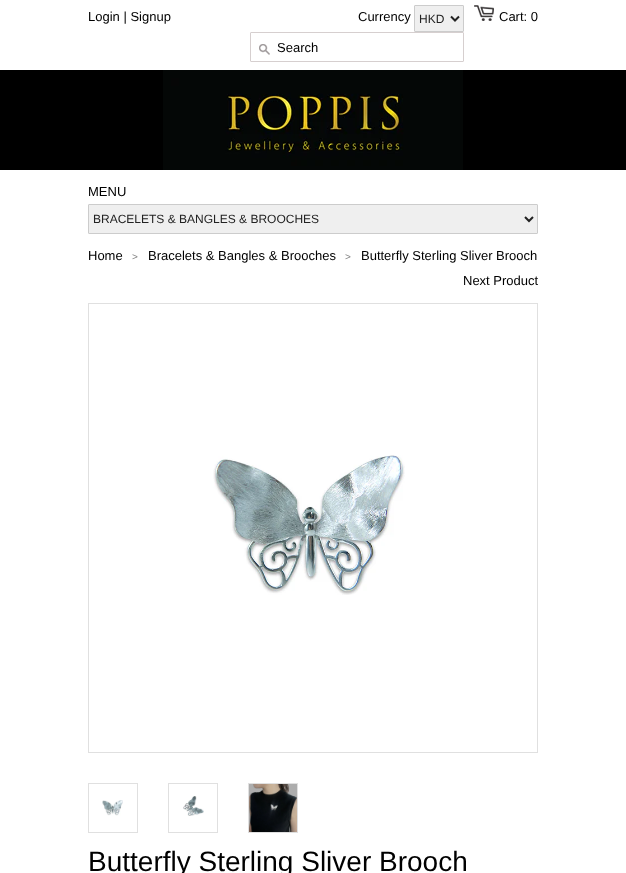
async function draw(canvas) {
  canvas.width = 626;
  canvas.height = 873;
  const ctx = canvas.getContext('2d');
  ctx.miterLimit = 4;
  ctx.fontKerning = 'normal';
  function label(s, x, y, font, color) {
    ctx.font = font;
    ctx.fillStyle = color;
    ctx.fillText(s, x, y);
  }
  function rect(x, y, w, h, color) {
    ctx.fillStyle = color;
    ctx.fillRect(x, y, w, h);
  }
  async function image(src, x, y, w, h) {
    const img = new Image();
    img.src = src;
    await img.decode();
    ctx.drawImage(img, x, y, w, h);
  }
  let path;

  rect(0, 0, 626, 873, '#fff');
  label('Login | Signup', 88, 21, '13px Liberation Sans', '#000');
  label('Currency', 358, 21, '13px Liberation Sans', '#000');
  ctx.fillStyle = '#efefef';
  ctx.beginPath();
  ctx.roundRect(414.5, 5.5, 49, 26, 0.5);
  ctx.fill();
  ctx.strokeStyle = '#ccc';
  ctx.stroke();
  path = new Path2D('M451 16.5L455 20.5L459 16.5');
  ctx.strokeStyle = '#222';
  ctx.lineWidth = 2;
  ctx.stroke(path);
  label('HKD', 419, 23, '12px Liberation Sans', '#222');
  await image('assets/img1.png', 474, 5, 20, 16);
  label('Cart: 0', 499, 21, '13px Liberation Sans', '#000');
  ctx.beginPath();
  ctx.roundRect(250.5, 32.5, 213, 29, 0.5);
  ctx.strokeStyle = '#d6cfcf';
  ctx.lineWidth = 1;
  ctx.stroke();
  await image('assets/img2.png', 259, 44, 11, 11);
  label('Search', 277, 52, '13px Liberation Sans', '#000');
  rect(0, 70, 626, 100, '#000');
  await image('assets/img3.png', 163, 70, 300, 100);
  label('MENU', 88, 196, '13px Liberation Sans', '#000');
  ctx.fillStyle = '#efefef';
  ctx.beginPath();
  ctx.roundRect(88.5, 204.5, 449, 29, 0.5);
  ctx.fill();
  ctx.strokeStyle = '#ccc';
  ctx.stroke();
  path = new Path2D('M525 217L529 221L533 217');
  ctx.strokeStyle = '#222';
  ctx.lineWidth = 2;
  ctx.stroke(path);
  label('BRACELETS & BANGLES & BROOCHES', 93, 223, '12px Liberation Sans', '#222');
  label('Home', 88, 260, '13px Liberation Sans', '#000');
  label('>', 132, 260, '10px Liberation Sans', '#808080');
  label('Bracelets & Bangles & Brooches', 148, 260, '13px Liberation Sans', '#000');
  label('>', 345, 260, '10px Liberation Sans', '#808080');
  label('Butterfly Sterling Sliver Brooch', 361, 260, '13px Liberation Sans', '#000');
  label('Next Product', 463, 285, '13px Liberation Sans', '#000');
  ctx.strokeStyle = '#e0e0e0';
  ctx.lineWidth = 1;
  ctx.strokeRect(88.5, 303.5, 449, 449);
  await image('assets/img4.png', 213, 455, 192, 140);
  ctx.strokeRect(88.5, 783.5, 49, 49);
  await image('assets/img5.png', 102, 800, 21, 16);
  ctx.strokeRect(168.5, 783.5, 49, 49);
  await image('assets/img6.png', 183, 796, 21, 20);
  ctx.strokeRect(248.5, 783.5, 49, 49);
  await image('assets/img7.png', 249, 784, 48, 48);
  label('Butterfly Sterling Sliver Brooch', 88, 871, '28px Liberation Sans', '#000');
}

draw(document.querySelector('canvas'));
